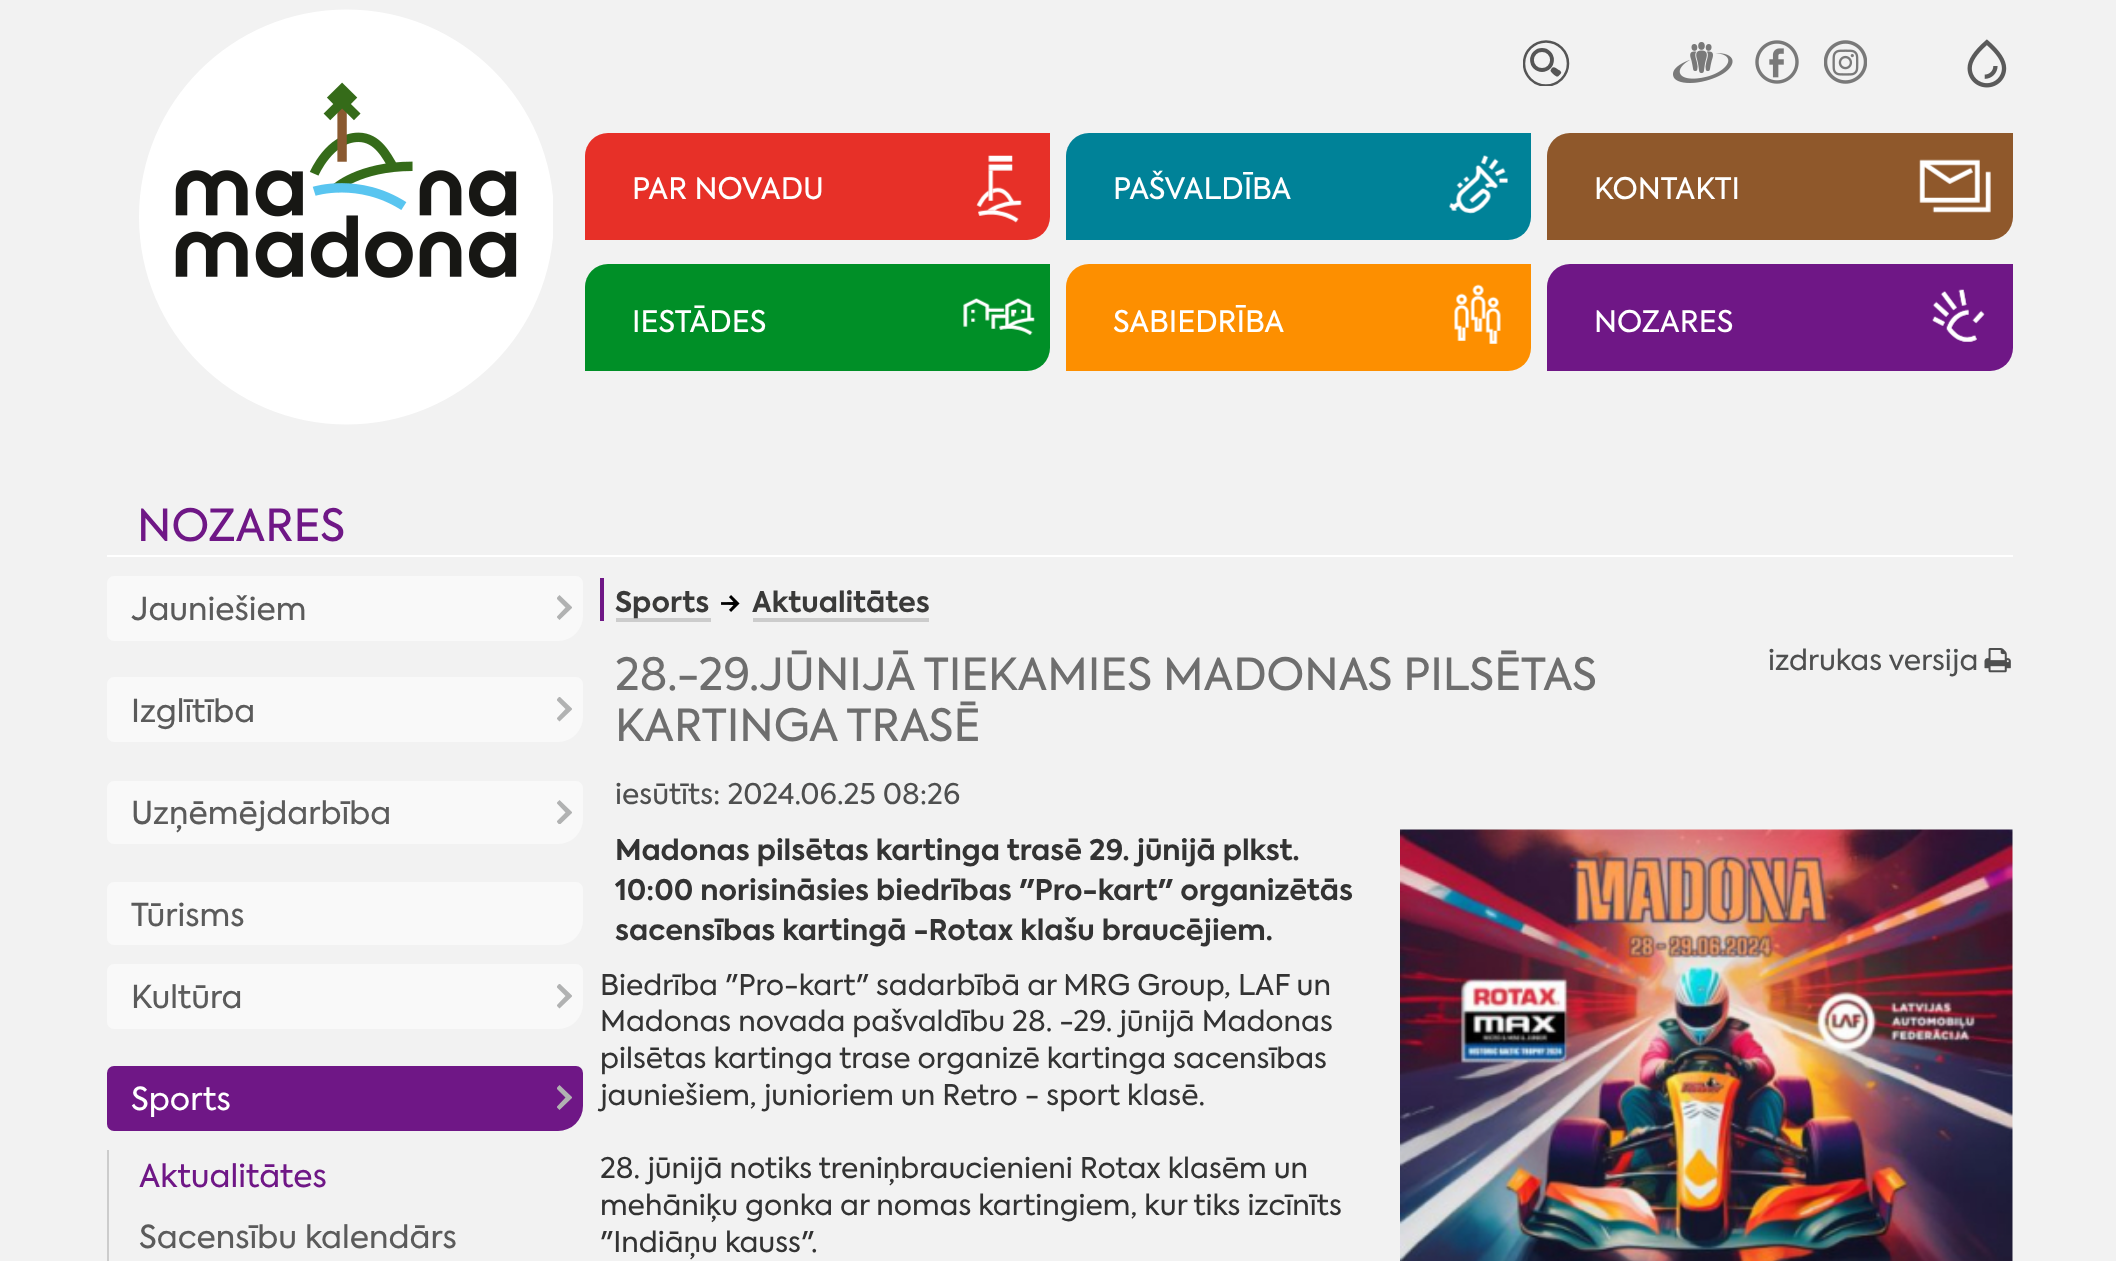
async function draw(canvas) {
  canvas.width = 2116;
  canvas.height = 1261;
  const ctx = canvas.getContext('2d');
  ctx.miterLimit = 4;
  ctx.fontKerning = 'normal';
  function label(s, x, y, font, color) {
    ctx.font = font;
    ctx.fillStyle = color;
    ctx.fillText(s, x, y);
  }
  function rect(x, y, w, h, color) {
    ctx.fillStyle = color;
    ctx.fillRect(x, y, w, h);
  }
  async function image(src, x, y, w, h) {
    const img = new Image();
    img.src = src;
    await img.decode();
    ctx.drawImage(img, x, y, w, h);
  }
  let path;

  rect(0, 0, 2116, 1261, '#f2f2f2');
  await image('assets/img1.png', 139, 9, 414, 416);
  ctx.fillStyle = '#555';
  path = new Path2D('M1551.5 68.5L1550.5 70.5C1550.5 72 1556 77.5 1558 76.5L1560.5 74C1562.5 72 1560 70.5 1558 69.5C1556 68 1553.5 66 1551.5 68.5Z');
  ctx.fill(path);
  ctx.beginPath();
  ctx.arc(1542, 60, 10, 0, 2 * Math.PI);
  ctx.strokeStyle = '#555';
  ctx.lineWidth = 3.8;
  ctx.stroke();
  ctx.save();
  ctx.beginPath();
  ctx.rect(1523, 40, 47, 46);
  ctx.clip();
  ctx.beginPath();
  ctx.arc(1546, 63.5, 22, 0, 2 * Math.PI);
  ctx.lineWidth = 2.5;
  ctx.stroke();
  ctx.restore();
  await image('assets/img2.png', 1673, 42, 60, 41);
  await image('assets/img3.png', 1755, 40, 44, 44);
  await image('assets/img4.png', 1824, 40, 43, 44);
  await image('assets/img5.png', 1967, 39, 40, 49);
  ctx.fillStyle = '#e73028';
  ctx.beginPath();
  ctx.roundRect(585, 133, 465, 107, [23, 0, 23, 0]);
  ctx.fill();
  label('PAR NOVADU', 632, 199, '29.5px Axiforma', '#fff');
  await image('assets/img6.png', 976, 155, 46, 68);
  ctx.fillStyle = '#008298';
  ctx.beginPath();
  ctx.roundRect(1066, 133, 465, 107, [23, 0, 23, 0]);
  ctx.fill();
  label('PAŠVALDĪBA', 1113, 199, '29.5px Axiforma', '#fff');
  await image('assets/img7.png', 1449, 155, 60, 59);
  ctx.fillStyle = '#8f582b';
  ctx.beginPath();
  ctx.roundRect(1547, 133, 466, 107, [23, 0, 23, 0]);
  ctx.fill();
  label('KONTAKTI', 1594, 199, '29.5px Axiforma', '#fff');
  await image('assets/img8.png', 1919, 159, 72, 54);
  ctx.fillStyle = '#008f27';
  ctx.beginPath();
  ctx.roundRect(585, 264, 465, 107, [23, 0, 23, 0]);
  ctx.fill();
  label('IESTĀDES', 632, 332, '29.5px Axiforma', '#fff');
  await image('assets/img9.png', 963, 298, 72, 37);
  ctx.fillStyle = '#fd8f00';
  ctx.beginPath();
  ctx.roundRect(1066, 264, 465, 107, [23, 0, 23, 0]);
  ctx.fill();
  label('SABIEDRĪBA', 1113, 332, '29.5px Axiforma', '#fff');
  await image('assets/img10.png', 1454, 284, 47, 60);
  ctx.fillStyle = '#6f1786';
  ctx.beginPath();
  ctx.roundRect(1547, 264, 466, 107, [23, 0, 23, 0]);
  ctx.fill();
  label('NOZARES', 1594, 332, '29.5px Axiforma', '#fff');
  await image('assets/img11.png', 1932, 289, 53, 53);
  rect(107, 555, 1906, 2, '#fff');
  label('NOZARES', 137, 541, '44.1px Axiforma', '#6f1786');
  ctx.fillStyle = '#f9f9f9';
  ctx.beginPath();
  ctx.roundRect(107, 576, 476, 65, [7, 7, 25, 7]);
  ctx.fill();
  label('Jauniešiem', 131, 620, '31.5px Axiforma', '#5b5b5b');
  ctx.save();
  ctx.beginPath();
  ctx.rect(557, 595, 15, 26);
  ctx.clip();
  ctx.fillStyle = '#b1b2b2';
  path = new Path2D('M558 596.5L556.5 598.5L565.5 607.5L556.5 617L559.5 620L572.5 607.5L559.5 595Z');
  ctx.fill(path);
  ctx.restore();
  ctx.fillStyle = '#f9f9f9';
  ctx.beginPath();
  ctx.roundRect(107, 677, 476, 65, [7, 7, 25, 7]);
  ctx.fill();
  label('Izglītība', 131, 722, '31.5px Axiforma', '#5b5b5b');
  ctx.save();
  ctx.beginPath();
  ctx.rect(557, 697, 15, 26);
  ctx.clip();
  ctx.fillStyle = '#b1b2b2';
  path = new Path2D('M558 698L556.5 700L565.5 709L556.5 718.5L559.5 721.5L572.5 709L559.5 696.5Z');
  ctx.fill(path);
  ctx.restore();
  ctx.fillStyle = '#f9f9f9';
  ctx.beginPath();
  ctx.roundRect(107, 781, 476, 63, [7, 7, 25, 7]);
  ctx.fill();
  label('Uzņēmējdarbība', 131, 824, '31.5px Axiforma', '#5b5b5b');
  ctx.save();
  ctx.beginPath();
  ctx.rect(557, 800, 15, 24);
  ctx.clip();
  ctx.fillStyle = '#b1b2b2';
  path = new Path2D('M558 801.5L556.5 803L565.5 812.5L556.5 821.5L559.5 825L572.5 812.5L559.5 800Z');
  ctx.fill(path);
  ctx.restore();
  ctx.fillStyle = '#f9f9f9';
  ctx.beginPath();
  ctx.roundRect(107, 882, 476, 63, [7, 7, 25, 7]);
  ctx.fill();
  label('Tūrisms', 131, 926, '31.5px Axiforma', '#5b5b5b');
  ctx.fillStyle = '#f9f9f9';
  ctx.beginPath();
  ctx.roundRect(107, 964, 476, 65, [7, 7, 25, 7]);
  ctx.fill();
  label('Kultūra', 131, 1008, '31.5px Axiforma', '#5b5b5b');
  ctx.save();
  ctx.beginPath();
  ctx.rect(557, 984, 15, 26);
  ctx.clip();
  ctx.fillStyle = '#b1b2b2';
  path = new Path2D('M558 985L556.5 987L565.5 996L556.5 1005.5L559.5 1008.5L572.5 996L559.5 983.5Z');
  ctx.fill(path);
  ctx.restore();
  ctx.fillStyle = '#6f1786';
  ctx.beginPath();
  ctx.roundRect(107, 1066, 476, 65, [7, 7, 25, 7]);
  ctx.fill();
  label('Sports', 131, 1110, '31.5px Axiforma', '#fff');
  ctx.save();
  ctx.beginPath();
  ctx.rect(557, 1085, 15, 26);
  ctx.clip();
  ctx.fillStyle = '#b1b2b2';
  path = new Path2D('M558 1086.5L556.5 1088.5L565.5 1097.5L556.5 1107L559.5 1110L572.5 1097.5L559.5 1085Z');
  ctx.fill(path);
  ctx.restore();
  rect(107, 1150, 2, 111, '#ccc');
  label('Aktualitātes', 139, 1187, '31.5px Axiforma', '#6f1786');
  label('Sacensību kalendārs', 139, 1248, '31.5px Axiforma', '#5b5b5b');
  rect(600, 578, 4, 43, '#6f1786');
  rect(616, 618, 95, 4, '#ccc');
  label('Sports', 615, 612, 'bold 28.35px Axiforma', '#3a3a39');
  await image('assets/img12.png', 721, 595, 19, 17);
  rect(753, 618, 176, 4, '#ccc');
  label('Aktualitātes', 752, 612, 'bold 28.35px Axiforma', '#3a3a39');
  label('28.-29.JŪNIJĀ TIEKAMIES MADONAS PILSĒTAS', 615, 690, '44.1px Axiforma', '#6e6e6e');
  label('KARTINGA TRASĒ', 615, 741, '44.1px Axiforma', '#6e6e6e');
  label('izdrukas versija', 1768, 670, '28.35px Axiforma', '#4e4f4f');
  await image('assets/img13.png', 1984, 648, 27, 25);
  label('iesūtīts: 2024.06.25 08:26', 615, 804, '28.35px Axiforma', '#4e4f4f');
  label('Madonas pilsētas kartinga trasē 29. jūnijā plkst.', 615, 860, 'bold 28.35px Axiforma', '#333');
  label('10:00 norisināsies biedrības "Pro-kart" organizētās', 615, 900, 'bold 28.35px Axiforma', '#333');
  label('sacensības kartingā -Rotax klašu braucējiem.', 615, 940, 'bold 28.35px Axiforma', '#333');
  await image('assets/img14.png', 1400, 829, 613, 432);
  label('Biedrība "Pro-kart" sadarbībā ar MRG Group, LAF un', 600, 995, '28.35px Axiforma', '#333');
  label('Madonas novada pašvaldību 28. -29. jūnijā Madonas', 600, 1031, '28.35px Axiforma', '#333');
  label('pilsētas kartinga trase organizē kartinga sacensības', 600, 1068, '28.35px Axiforma', '#333');
  label('jauniešiem, junioriem un Retro - sport klasē.', 600, 1105, '28.35px Axiforma', '#333');
  label('28. jūnijā notiks treniņbraucienieni Rotax klasēm un', 600, 1178, '28.35px Axiforma', '#333');
  label('mehāniķu gonka ar nomas kartingiem, kur tiks izcīnīts', 600, 1215, '28.35px Axiforma', '#333');
  label('"Indiāņu kauss".', 600, 1252, '28.35px Axiforma', '#333');
}

draw(document.querySelector('canvas'));
